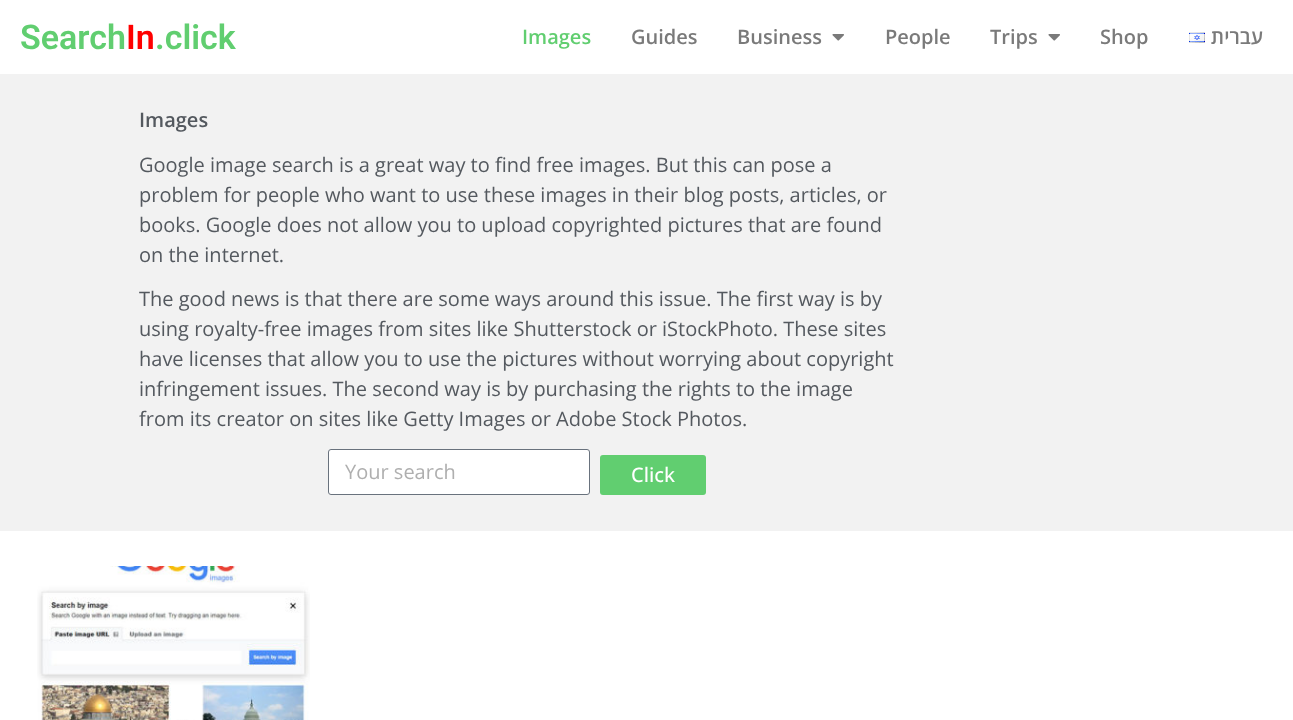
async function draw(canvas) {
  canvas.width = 1293;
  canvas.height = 720;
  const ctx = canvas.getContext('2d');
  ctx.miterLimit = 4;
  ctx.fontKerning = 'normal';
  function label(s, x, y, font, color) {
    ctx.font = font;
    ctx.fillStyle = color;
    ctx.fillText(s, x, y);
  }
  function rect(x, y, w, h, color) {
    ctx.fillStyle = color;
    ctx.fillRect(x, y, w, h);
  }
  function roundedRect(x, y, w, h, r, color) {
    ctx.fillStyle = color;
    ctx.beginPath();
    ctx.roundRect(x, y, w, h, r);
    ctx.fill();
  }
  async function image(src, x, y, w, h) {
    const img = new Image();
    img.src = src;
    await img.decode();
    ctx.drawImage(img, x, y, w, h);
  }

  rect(0, 0, 1293, 720, '#fff');
  label('Search', 20, 49, '600 34px Roboto', '#61ce70');
  label('In', 126, 49, '600 34px Roboto', '#f00');
  label('.click', 155, 49, '600 34px Roboto', '#61ce70');
  label('Images', 522, 44, '600 20px Open Sans', '#61ce70');
  label('Guides', 631, 44, '600 20px Open Sans', '#7a7a7a');
  label('Business', 737, 44, '600 20px Open Sans', '#7a7a7a');
  await image('assets/img1.png', 832, 34, 12, 7);
  label('People', 885, 44, '600 20px Open Sans', '#7a7a7a');
  label('Trips', 990, 44, '600 20px Open Sans', '#7a7a7a');
  await image('assets/img1.png', 1048, 34, 12, 7);
  label('Shop', 1100, 44, '600 20px Open Sans', '#7a7a7a');
  await image('assets/img2.png', 1189, 32, 16, 11);
  ctx.direction = 'rtl';
  label('עברית', 1263, 44, '600 20px Open Sans', '#7a7a7a');
  rect(0, 74, 1293, 457, '#f2f2f2');
  ctx.direction = 'ltr';
  label('Images', 139, 127, '600 20px Open Sans', '#54595f');
  label('Google image search is a great way to find free images. But this can pose a', 139, 172, '20px Open Sans', '#54595f');
  label('problem for people who want to use these images in their blog posts, articles, or', 139, 202, '20px Open Sans', '#54595f');
  label('books. Google does not allow you to upload copyrighted pictures that are found', 139, 232, '20px Open Sans', '#54595f');
  label('on the internet.', 139, 262, '20px Open Sans', '#54595f');
  label('The good news is that there are some ways around this issue. The first way is by', 139, 306, '20px Open Sans', '#54595f');
  label('using royalty-free images from sites like Shutterstock or iStockPhoto. These sites', 139, 336, '20px Open Sans', '#54595f');
  label('have licenses that allow you to use the pictures without worrying about copyright', 139, 366, '20px Open Sans', '#54595f');
  label('infringement issues. The second way is by purchasing the rights to the image', 139, 396, '20px Open Sans', '#54595f');
  label('from its creator on sites like Getty Images or Adobe Stock Photos.', 139, 426, '20px Open Sans', '#54595f');
  ctx.fillStyle = '#fff';
  ctx.beginPath();
  ctx.roundRect(328.5, 449.5, 261, 45, 2.5);
  ctx.fill();
  ctx.strokeStyle = '#69727d';
  ctx.stroke();
  label('Your search', 345, 479, '20px Open Sans', '#afafaf');
  roundedRect(600, 455, 106, 40, 3, '#61ce70');
  label('Click', 631, 482, '500 20px Open Sans', '#fff');
  await image('assets/img3.png', 37, 566, 273, 154);
}

draw(document.querySelector('canvas'));
